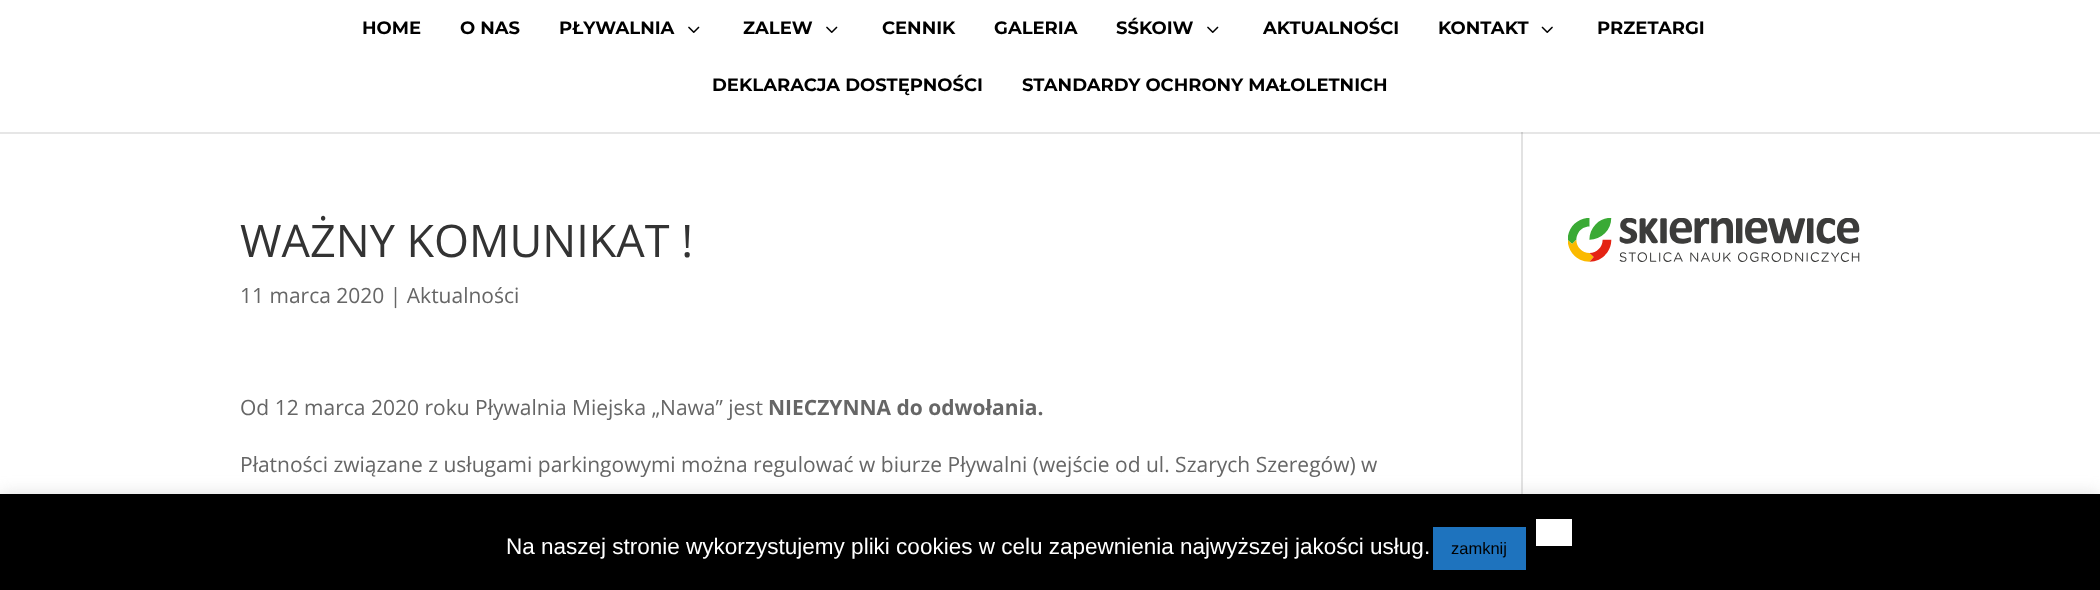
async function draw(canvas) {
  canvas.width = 2100;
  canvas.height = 590;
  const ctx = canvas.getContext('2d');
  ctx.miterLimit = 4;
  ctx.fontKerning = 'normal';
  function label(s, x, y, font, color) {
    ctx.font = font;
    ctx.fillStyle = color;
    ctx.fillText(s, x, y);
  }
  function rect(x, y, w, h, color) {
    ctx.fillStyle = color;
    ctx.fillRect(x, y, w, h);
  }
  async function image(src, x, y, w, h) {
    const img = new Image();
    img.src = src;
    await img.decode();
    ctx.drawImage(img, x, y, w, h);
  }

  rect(0, 0, 2100, 590, '#fff');
  rect(0, 132, 2100, 2, '#e6e6e6');
  rect(1521, 131, 2, 363, '#e2e2e2');
  rect(1521, 131, 2, 1, '#fff');
  label('HOME', 362, 34, 'bold 18px Montserrat', '#000');
  label('O NAS', 460, 34, 'bold 18px Montserrat', '#000');
  label('PŁYWALNIA', 559, 34, 'bold 18px Montserrat', '#000');
  await image('assets/img1.png', 688, 26, 12, 7);
  label('ZALEW', 743, 34, 'bold 18px Montserrat', '#000');
  await image('assets/img1.png', 826, 26, 12, 7);
  label('CENNIK', 882, 34, 'bold 18px Montserrat', '#000');
  label('GALERIA', 994, 34, 'bold 18px Montserrat', '#000');
  label('SŚKOIW', 1116, 34, 'bold 18px Montserrat', '#000');
  await image('assets/img1.png', 1207, 26, 12, 7);
  label('AKTUALNOŚCI', 1263, 34, 'bold 18px Montserrat', '#000');
  label('KONTAKT', 1438, 34, 'bold 18px Montserrat', '#000');
  await image('assets/img2.png', 1541, 26, 12, 7);
  label('PRZETARGI', 1597, 34, 'bold 18px Montserrat', '#000');
  label('DEKLARACJA DOSTĘPNOŚCI', 712, 91, 'bold 18px Montserrat', '#000');
  label('STANDARDY OCHRONY MAŁOLETNICH', 1022, 91, 'bold 18px Montserrat', '#000');
  label('WAŻNY KOMUNIKAT !', 240, 257, '45px Open Sans', '#333');
  label('11 marca 2020 | Aktualności', 240, 303, '21px Open Sans', '#666');
  label('Od 12 marca 2020 roku Pływalnia Miejska „Nawa” jest', 240, 415, '21px Open Sans', '#666');
  label('NIECZYNNA do odwołania.', 768, 415, 'bold 21px Open Sans', '#666');
  label('Płatności związane z usługami parkingowymi można regulować w biurze Pływalni (wejście od ul. Szarych Szeregów) w', 240, 472, '21px Open Sans', '#666');
  await image('assets/img3.png', 1568, 218, 292, 44);
  rect(1521, 132, 2, 2, '#cbcbcb');
  ctx.fillStyle = '#acabab4d';
  ctx.filter = 'blur(7.5px)';
  ctx.beginPath();
  ctx.rect(0, 492, 2100, 98);
  ctx.fill();
  ctx.filter = 'none';
  rect(0, 494, 2100, 96, '#000');
  label('Na naszej stronie wykorzystujemy pliki cookies w celu zapewnienia najwyższej jakości usług.', 506, 554, '22.5px Liberation Sans', '#fff');
  rect(1433, 527, 93, 43, '#1e73be');
  label('zamknij', 1451, 554, '16.5px Liberation Sans', '#000');
  rect(1536, 519, 36, 27, '#fff');
}

draw(document.querySelector('canvas'));
